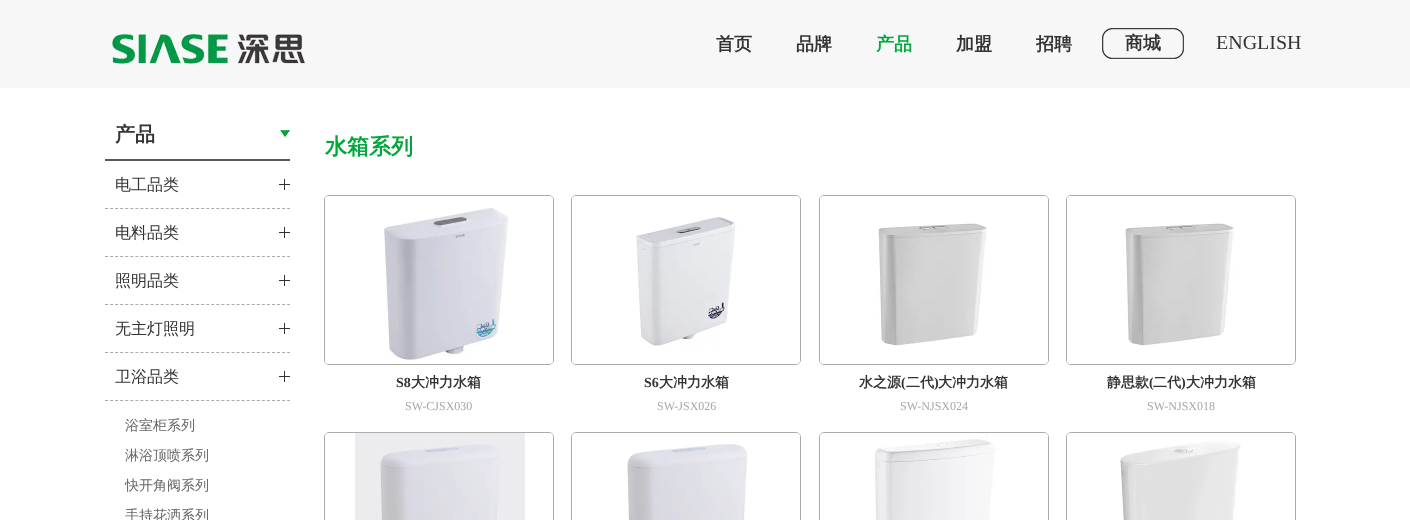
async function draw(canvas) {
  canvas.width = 1410;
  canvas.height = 520;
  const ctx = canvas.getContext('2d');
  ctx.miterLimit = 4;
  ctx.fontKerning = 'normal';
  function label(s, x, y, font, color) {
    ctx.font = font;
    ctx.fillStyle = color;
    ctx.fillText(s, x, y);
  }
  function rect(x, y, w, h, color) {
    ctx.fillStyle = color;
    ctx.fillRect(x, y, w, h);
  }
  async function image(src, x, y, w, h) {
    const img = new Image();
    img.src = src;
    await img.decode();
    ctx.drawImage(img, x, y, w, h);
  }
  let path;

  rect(0, 0, 1410, 520, '#fff');
  rect(0, 0, 1410, 88, '#f7f7f7');
  await image('assets/img1.png', 112, 34, 193, 30);
  label('首页', 716, 50, 'bold 18px WenQuanYi Zen Hei', '#333');
  label('品牌', 796, 50, 'bold 18px WenQuanYi Zen Hei', '#333');
  label('产品', 876, 50, 'bold 18px WenQuanYi Zen Hei', '#00a73c');
  label('加盟', 956, 50, 'bold 18px WenQuanYi Zen Hei', '#333');
  label('招聘', 1036, 50, 'bold 18px WenQuanYi Zen Hei', '#333');
  await image('assets/img2.png', 1102, 28, 82, 31);
  label('商城', 1125, 49, 'bold 18px WenQuanYi Zen Hei', '#333');
  label('ENGLISH', 1216, 49, '20px Liberation Serif', '#333');
  await image('assets/img3.png', 280, 130, 10, 8);
  rect(105, 159, 185, 2, '#595757');
  label('产品', 115, 141, 'bold 20px WenQuanYi Zen Hei', '#333');
  await image('assets/img4.png', 279, 179, 11, 11);
  path = new Path2D('M105 208.5H290');
  ctx.strokeStyle = '#aaa';
  ctx.setLineDash([3, 2.06]);
  ctx.stroke(path);
  label('电工品类', 115, 190, '500 16px WenQuanYi Zen Hei', '#333');
  await image('assets/img4.png', 279, 227, 11, 11);
  path = new Path2D('M105 256.5H290');
  ctx.stroke(path);
  label('电料品类', 115, 238, '500 16px WenQuanYi Zen Hei', '#333');
  await image('assets/img4.png', 279, 275, 11, 11);
  path = new Path2D('M105 304.5H290');
  ctx.stroke(path);
  label('照明品类', 115, 286, '500 16px WenQuanYi Zen Hei', '#333');
  await image('assets/img4.png', 279, 323, 11, 11);
  path = new Path2D('M105 352.5H290');
  ctx.stroke(path);
  label('无主灯照明', 115, 334, '500 16px WenQuanYi Zen Hei', '#333');
  await image('assets/img4.png', 279, 371, 11, 11);
  path = new Path2D('M105 400.5H290');
  ctx.stroke(path);
  label('卫浴品类', 115, 382, '500 16px WenQuanYi Zen Hei', '#333');
  label('浴室柜系列', 125, 430, '500 14px WenQuanYi Zen Hei', '#666');
  label('淋浴顶喷系列', 125, 460, '500 14px WenQuanYi Zen Hei', '#666');
  label('快开角阀系列', 125, 490, '500 14px WenQuanYi Zen Hei', '#666');
  label('手持花洒系列', 125, 520, '500 14px WenQuanYi Zen Hei', '#666');
  label('水箱系列', 325, 154, 'bold 22px WenQuanYi Zen Hei', '#00a73c');
  ctx.beginPath();
  ctx.roundRect(324.5, 195.5, 229, 169, 4.5);
  ctx.strokeStyle = '#ababac';
  ctx.setLineDash([]);
  ctx.stroke();
  await image('assets/img5.png', 325, 196, 228, 168);
  label('S8', 396, 387, 'bold 14px Liberation Serif', '#333');
  label('大冲力水箱', 411, 387, 'bold 14px WenQuanYi Zen Hei', '#333');
  label('SW-CJSX030', 405, 410, '12px Liberation Serif', '#a6a6a7');
  ctx.beginPath();
  ctx.roundRect(571.5, 195.5, 229, 169, 4.5);
  ctx.stroke();
  await image('assets/img6.png', 572, 196, 228, 168);
  label('S6', 644, 387, 'bold 14px Liberation Serif', '#333');
  label('大冲力水箱', 659, 387, 'bold 14px WenQuanYi Zen Hei', '#333');
  label('SW-JSX026', 657, 410, '12px Liberation Serif', '#a6a6a7');
  ctx.beginPath();
  ctx.roundRect(819.5, 195.5, 229, 169, 4.5);
  ctx.stroke();
  await image('assets/img7.png', 820, 196, 228, 168);
  label('水之源', 859, 387, 'bold 14px WenQuanYi Zen Hei', '#333');
  label('(', 901, 387, 'bold 14px Liberation Serif', '#333');
  label('二代', 906, 387, 'bold 14px WenQuanYi Zen Hei', '#333');
  label(')', 934, 387, 'bold 14px Liberation Serif', '#333');
  label('大冲力水箱', 938, 387, 'bold 14px WenQuanYi Zen Hei', '#333');
  label('SW-NJSX024', 900, 410, '12px Liberation Serif', '#a6a6a7');
  ctx.beginPath();
  ctx.roundRect(1066.5, 195.5, 229, 169, 4.5);
  ctx.stroke();
  await image('assets/img7.png', 1067, 196, 228, 168);
  label('静思款', 1107, 387, 'bold 14px WenQuanYi Zen Hei', '#333');
  label('(', 1149, 387, 'bold 14px Liberation Serif', '#333');
  label('二代', 1153, 387, 'bold 14px WenQuanYi Zen Hei', '#333');
  label(')', 1181, 387, 'bold 14px Liberation Serif', '#333');
  label('大冲力水箱', 1186, 387, 'bold 14px WenQuanYi Zen Hei', '#333');
  label('SW-NJSX018', 1147, 410, '12px Liberation Serif', '#a6a6a7');
  ctx.beginPath();
  ctx.roundRect(324.5, 432.5, 229, 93, 4.5);
  ctx.stroke();
  await image('assets/img8.png', 325, 433, 228, 87);
  ctx.beginPath();
  ctx.roundRect(571.5, 432.5, 229, 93, 4.5);
  ctx.stroke();
  await image('assets/img9.png', 572, 433, 228, 87);
  ctx.beginPath();
  ctx.roundRect(819.5, 432.5, 229, 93, 4.5);
  ctx.stroke();
  await image('assets/img10.png', 820, 433, 228, 87);
  ctx.beginPath();
  ctx.roundRect(1066.5, 432.5, 229, 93, 4.5);
  ctx.stroke();
  await image('assets/img11.png', 1067, 433, 228, 87);
}

draw(document.querySelector('canvas'));
